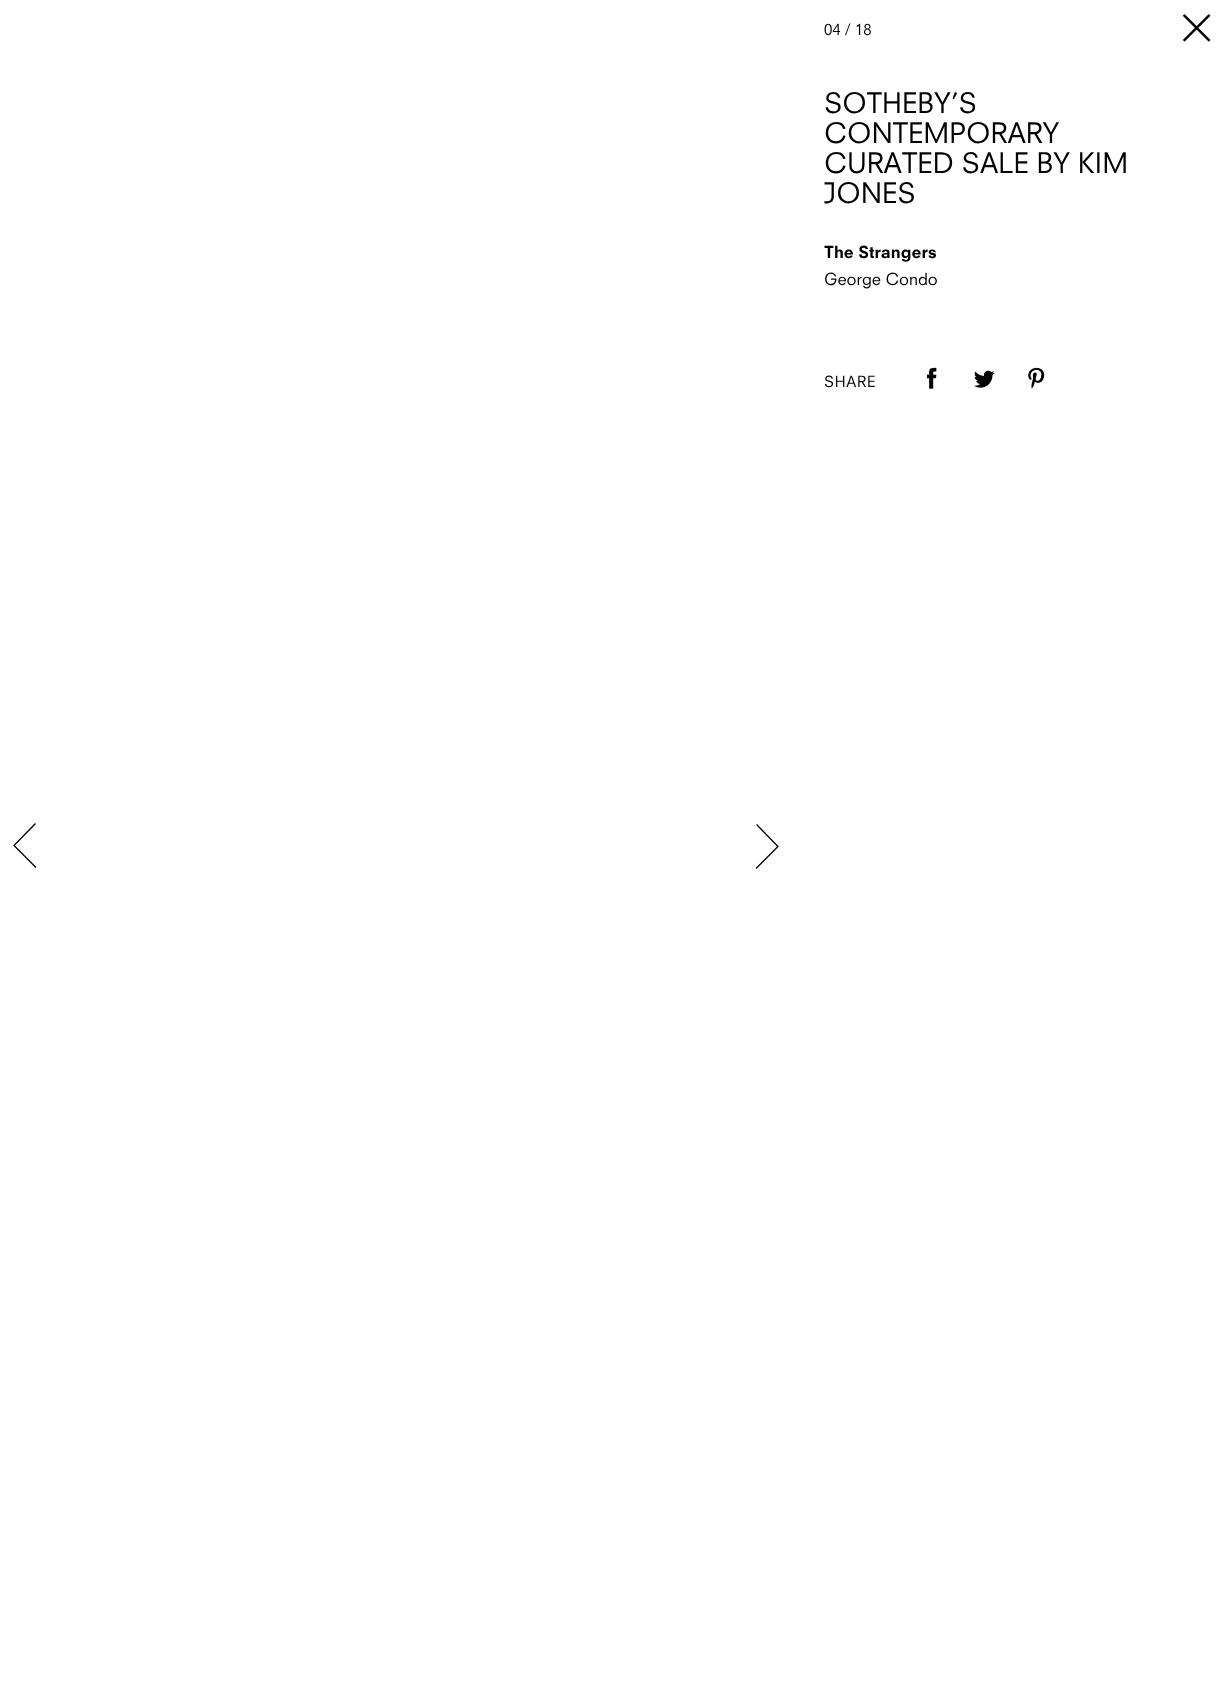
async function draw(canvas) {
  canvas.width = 1228;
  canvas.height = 1692;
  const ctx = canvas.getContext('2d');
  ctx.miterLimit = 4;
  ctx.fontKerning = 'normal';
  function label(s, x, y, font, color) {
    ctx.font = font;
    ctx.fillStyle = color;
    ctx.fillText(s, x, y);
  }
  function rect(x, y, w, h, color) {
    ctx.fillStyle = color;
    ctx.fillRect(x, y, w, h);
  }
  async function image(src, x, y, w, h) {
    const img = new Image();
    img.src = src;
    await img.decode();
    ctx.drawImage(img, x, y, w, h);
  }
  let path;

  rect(0, 0, 1228, 1692, '#fff');
  label('04 / 18', 824, 35, '15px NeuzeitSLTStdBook', '#000');
  label('SOTHEBY’S', 824, 113, '27.5px NeuzeitSLTStdBook', '#000');
  label('CONTEMPORARY', 824, 143, '27.5px NeuzeitSLTStdBook', '#000');
  label('CURATED SALE BY KIM', 824, 173, '27.5px NeuzeitSLTStdBook', '#000');
  label('JONES', 824, 203, '27.5px NeuzeitSLTStdBook', '#000');
  await image('assets/img1.png', 1182, 14, 29, 28);
  label('The Strangers', 824, 258, '16.25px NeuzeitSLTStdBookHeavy', '#000');
  label('George Condo', 824, 285, '16.25px NeuzeitSLTStdBook', '#000');
  ctx.letterSpacing = '0.75px';
  label('SHARE', 824, 387, '15px NeuzeitSLTStdBook', '#000');
  await image('assets/img2.png', 927, 367, 10, 22);
  await image('assets/img3.png', 974, 370, 21, 18);
  await image('assets/img4.png', 1028, 367, 17, 22);
  path = new Path2D('M35 824L14 845.5L35.5 867');
  ctx.strokeStyle = '#000';
  ctx.lineWidth = 1.3;
  ctx.lineCap = 'square';
  ctx.stroke(path);
  path = new Path2D('M757 825L778 846.5L756.5 868');
  ctx.stroke(path);
}

draw(document.querySelector('canvas'));
